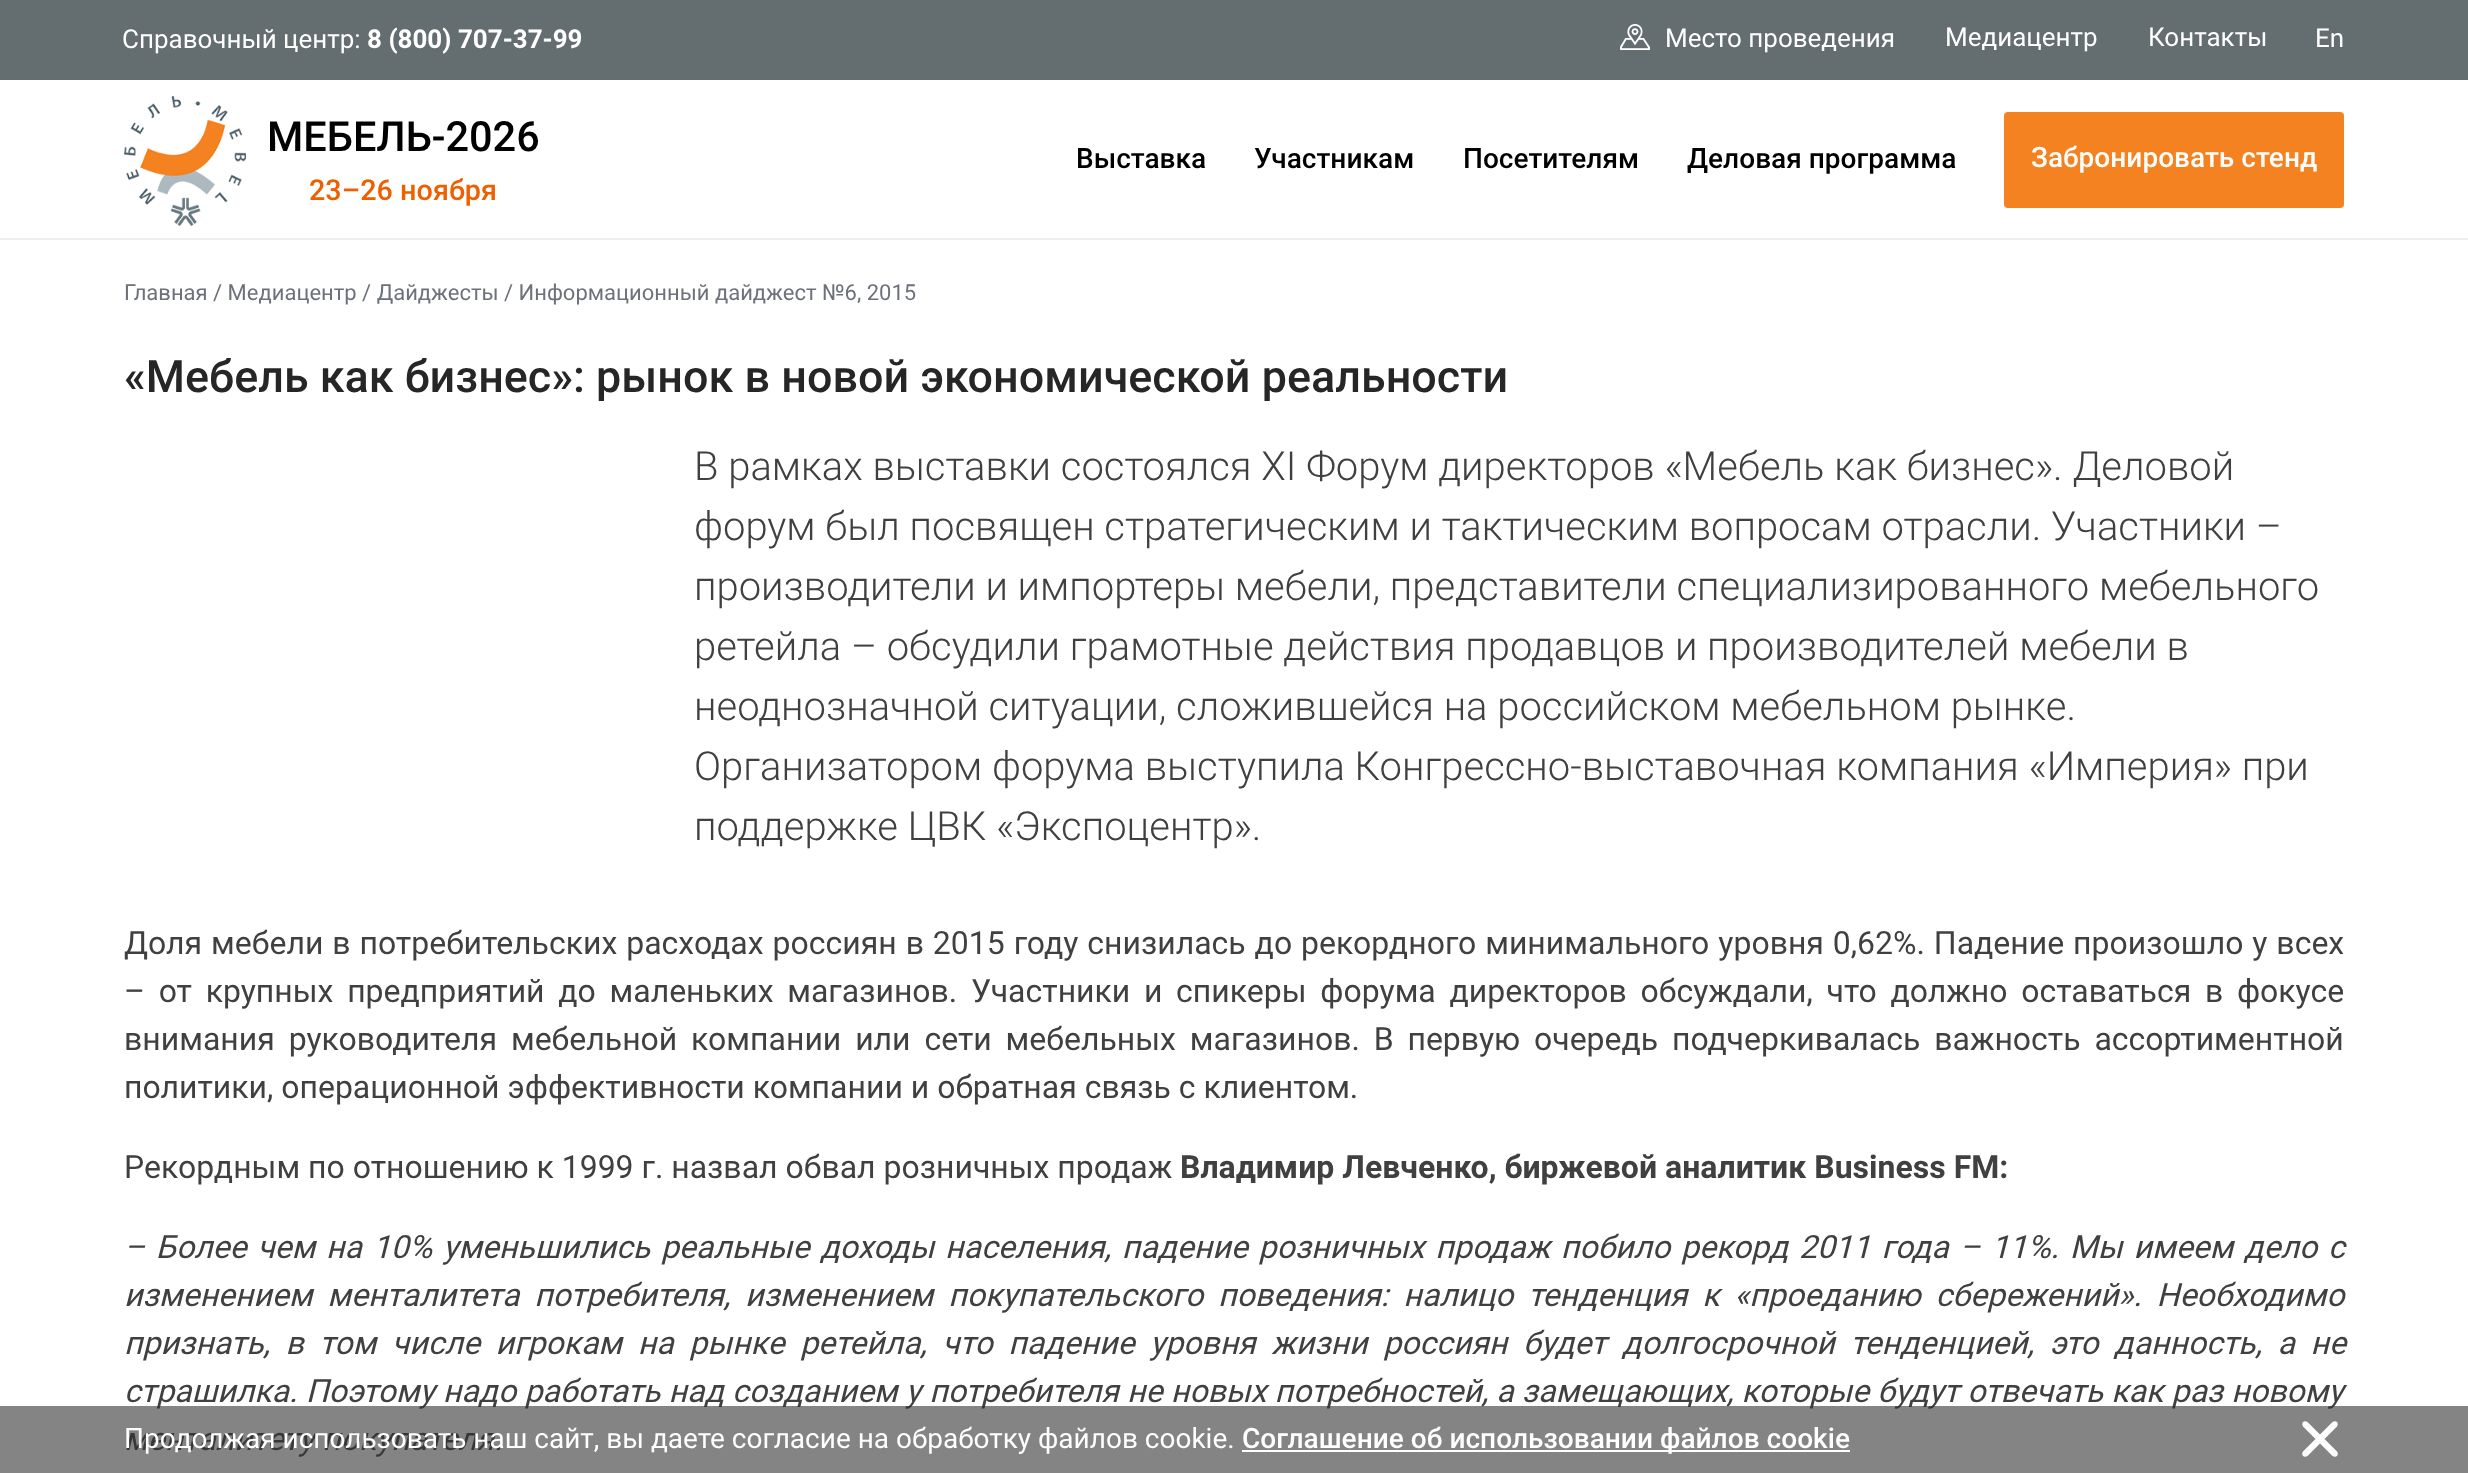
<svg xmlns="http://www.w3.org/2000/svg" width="2468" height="1473">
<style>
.a{font:26px Roboto;fill:#fff}
.b{font:bold 26px Roboto;fill:#fff}
.c{font:500 41.5px Roboto;fill:#000}
.d{font:500 28.75px Roboto;fill:#ee5f00}
.e{font:500 28px Roboto;fill:#000}
.f{font:500 28px Roboto;fill:#fff}
.g{font:22px Roboto;fill:#6d7179}
.h{font:500 44.8px Roboto;fill:#262626}
.i{font:300 40px Roboto;fill:#404040}
.j{font:32px Roboto;fill:#404040}
.k{font:bold 32px Roboto;fill:#404040}
.l{font:italic 32px Roboto;fill:#404040}
.m{font:28px Roboto;fill:#fff}
</style>
<rect width="100%" height="100%" fill="#fff"/>
<path fill="#646d70" d="M0 0h2468v80H0z"/>
<image href="1.png" x="1620" y="24" width="30" height="26"/>
<path fill="#edeeef" d="M0 238h2468v2H0z"/>
<image href="2.png" x="124" y="96" width="122" height="130"/>
<rect fill="#f58220" x="2004" y="112" width="340" height="96" rx="4"/>
<text class="a" x="122" y="48">Справочный центр:</text>
<text class="b" x="367" y="48">8 (800) 707-37-99</text>
<text class="a" x="1665" y="47">Место проведения</text>
<text class="a" x="1945" y="46">Медиацентр</text>
<text class="a" x="2148" y="46">Контакты</text>
<text class="a" x="2315" y="47">En</text>
<text class="c" x="267" y="151">МЕБЕЛЬ-2026</text>
<text class="d" x="309" y="200">23–26 ноября</text>
<text class="e" x="1076" y="168">Выставка</text>
<text class="e" x="1254" y="168">Участникам</text>
<text class="e" x="1463" y="168">Посетителям</text>
<text class="e" x="1687" y="168">Деловая программа</text>
<text class="f" x="2031" y="167">Забронировать стенд</text>
<text class="g" x="124" y="300">Главная / Медиацентр / Дайджесты / Информационный дайджест №6, 2015</text>
<text class="h" x="124" y="392">«Мебель как бизнес»: рынок в новой экономической реальности</text>
<text class="i" x="694" y="480">В рамках выставки состоялся XI Форум директоров «Мебель как бизнес». Деловой</text>
<text class="i" x="694" y="540">форум был посвящен стратегическим и тактическим вопросам отрасли. Участники –</text>
<text class="i" x="694" y="600">производители и импортеры мебели, представители специализированного мебельного</text>
<text class="i" x="694" y="660">ретейла – обсудили грамотные действия продавцов и производителей мебели в</text>
<text class="i" x="694" y="720">неоднозначной ситуации, сложившейся на российском мебельном рынке.</text>
<text class="i" x="694" y="780">Организатором форума выступила Конгрессно-выставочная компания «Империя» при</text>
<text class="i" x="694" y="840">поддержке ЦВК «Экспоцентр».</text>
<text class="j" x="124" y="954" word-spacing="1">Доля мебели в потребительских расходах россиян в 2015 году снизилась до рекордного минимального уровня 0,62%. Падение произошло у всех</text>
<text class="j" x="124" y="1002" word-spacing="5.75">– от крупных предприятий до маленьких магазинов. Участники и спикеры форума директоров обсуждали, что должно оставаться в фокусе</text>
<text class="j" x="124" y="1050" word-spacing="5.9">внимания руководителя мебельной компании или сети мебельных магазинов. В первую очередь подчеркивалась важность ассортиментной</text>
<text class="j" x="124" y="1098">политики, операционной эффективности компании и обратная связь с клиентом.</text>
<text class="j" x="124" y="1178">Рекордным по отношению к 1999 г. назвал обвал розничных продаж</text>
<text class="k" x="1180" y="1178">Владимир Левченко, биржевой аналитик Business FM:</text>
<text class="l" x="124" y="1258" word-spacing="2.9">– Более чем на 10% уменьшились реальные доходы населения, падение розничных продаж побило рекорд 2011 года – 11%. Мы имеем дело с</text>
<text class="l" x="124" y="1306" word-spacing="6.9">изменением менталитета потребителя, изменением покупательского поведения: налицо тенденция к «проеданию сбережений». Необходимо</text>
<text class="l" x="124" y="1354" word-spacing="7.75">признать, в том числе игрокам на рынке ретейла, что падение уровня жизни россиян будет долгосрочной тенденцией, это данность, а не</text>
<text class="l" x="124" y="1402" word-spacing="0.3">страшилка. Поэтому надо работать над созданием у потребителя не новых потребностей, а замещающих, которые будут отвечать как раз новому</text>
<text class="l" x="124" y="1450">менталитету покупателя.</text>
<path fill="#32323299" d="M0 1406h2468v67H0z"/>
<text class="m" x="124" y="1448">Продолжая использовать наш сайт, вы даете согласие на обработку файлов cookie.</text>
<path fill="#fff" d="M1242 1450h608v2H1242z"/>
<text class="f" x="1242" y="1448">Cоглашение об использовании файлов cookie</text>
<path fill="#fff" d="M2307.5 1422l29.5 29.5c1 1.5 1 3.5 0 4.5c-1 1-3 1-4.5 0l-29.5-29.5c-1-1.5-1-3.5 0-4.5c1-1 3-1 4.5 0z"/>
<path fill="#fff" d="M2303 1451.5l29.5-29.5c1.5-1 3.5-1 4.5 0c1 1 1 3 0 4.5l-29.5 29.5c-1.5 1-3.5 1-4.5 0c-1-1-1-3 0-4.5z"/>
</svg>
